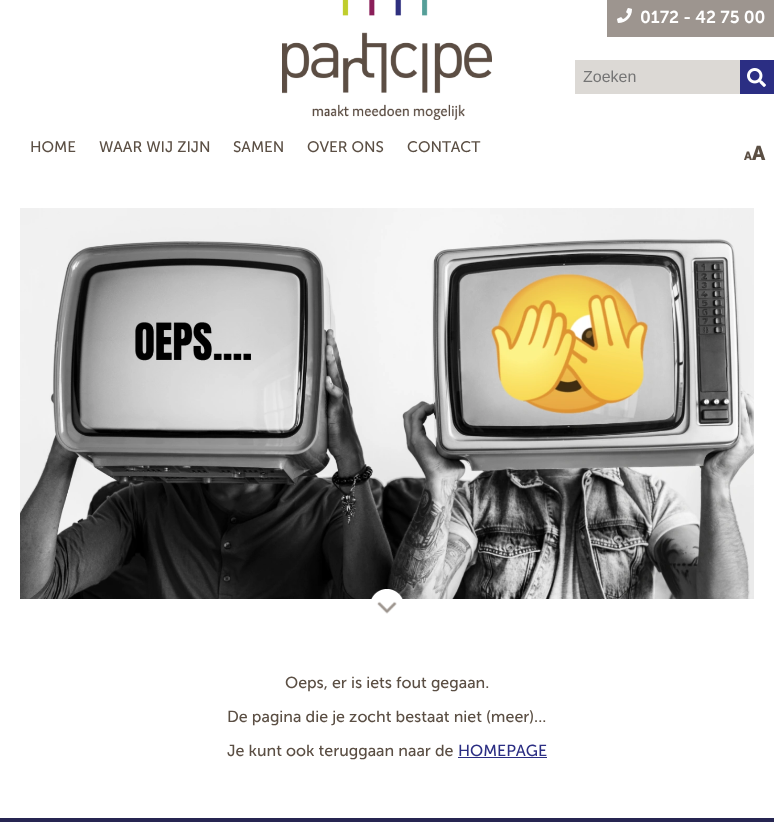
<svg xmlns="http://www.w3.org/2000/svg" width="774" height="822">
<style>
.a{font:600 17.25px 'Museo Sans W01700';fill:#fff}
.b{font:16px Liberation Sans;fill:#757575}
.c{font:15.25px 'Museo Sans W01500';fill:#5b4f44}
.d{font:800 12px 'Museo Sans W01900';fill:#5b4f44}
.e{font:800 20px 'Museo Sans W01900';fill:#5b4f44}
.f{font:16px 'Museo Sans W01500';fill:#5b4f44}
.g{font:16px 'Museo Sans W01500';fill:#2b2e83}
</style>
<rect width="100%" height="100%" fill="#fff"/>
<image href="1.png" x="282" y="0" width="210" height="120"/>
<path fill="#9d958f" d="M607 0h167v37H607z"/>
<image href="2.png" x="617" y="8" width="15" height="15"/>
<path fill="#dcd9d5" d="M575 60h165v34H575z"/>
<path fill="#2b2e83" d="M740 60h34v34H740z"/>
<image href="3.png" x="747" y="68" width="19" height="19"/>
<image href="4.png" x="20" y="208" width="734" height="391"/>
<image href="5.png" x="371" y="589" width="32" height="25"/>
<path fill="#2b2e83" d="M458 757h89v1H458z"/>
<path fill="#262551" d="M0 818h774v4H0z"/>
<text class="a" x="640" y="23">0172 - 42 75 00</text>
<text class="b" x="583" y="82">Zoeken</text>
<text class="c" x="30" y="152">HOME</text>
<text class="c" x="99" y="152">WAAR WIJ ZIJN</text>
<text class="c" x="233" y="152">SAMEN</text>
<text class="c" x="307" y="152">OVER ONS</text>
<text class="c" x="407" y="152">CONTACT</text>
<text class="d" x="744" y="160">A</text>
<text class="e" x="752" y="160">A</text>
<text class="f" x="285" y="688">Oeps, er is iets fout gegaan.</text>
<text class="f" x="227" y="722">De pagina die je zocht bestaat niet (meer)...</text>
<text class="f" x="227" y="756">Je kunt ook teruggaan naar de</text>
<text class="g" x="458" y="756">HOMEPAGE</text>
</svg>
